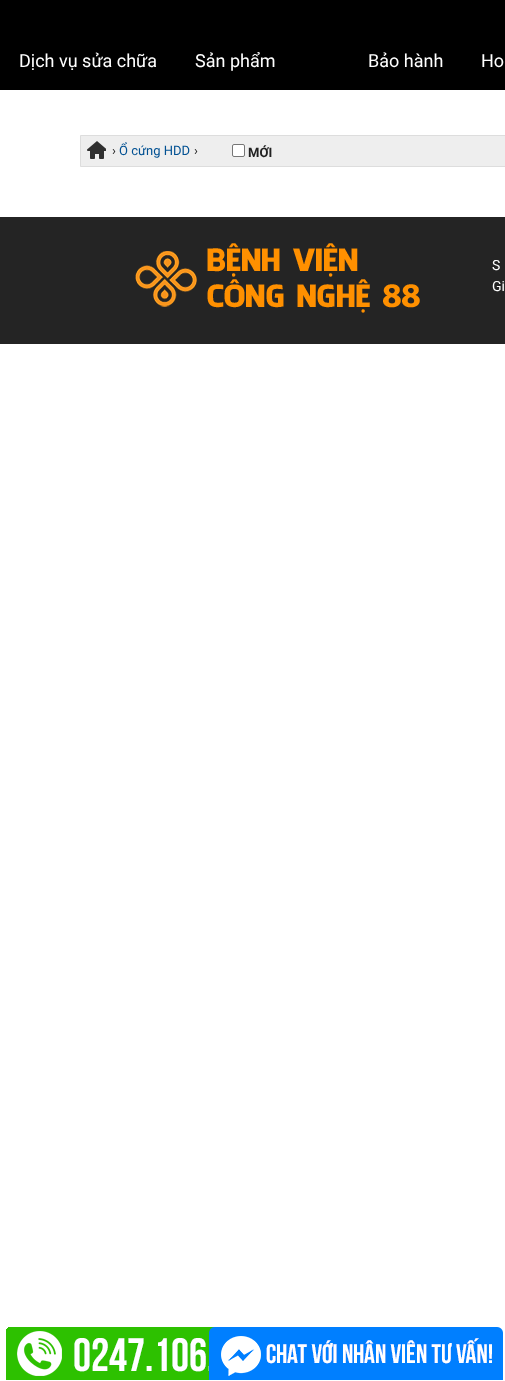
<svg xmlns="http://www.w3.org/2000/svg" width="505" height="1381">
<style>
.a{font:18px Roboto;fill:#fff}
.b{font:13px Roboto;fill:#222}
.c{font:13px Roboto;fill:#015092}
.d{font:bold 13px Roboto;fill:#222}
.e{font:14px Roboto;fill:#fff}
</style>
<rect width="100%" height="100%" fill="#fff"/>
<path fill="#000" d="M0 0h505v90H0z"/>
<path fill="#eee" stroke="#ddd" d="M80.5 135.5h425v31H80.5z"/>
<image href="1.png" x="87" y="141" width="19" height="18"/>
<rect fill="#fff" stroke="#767676" x="232.5" y="144.5" width="12" height="12" rx="1.5"/>
<path fill="#242424" d="M0 217h505v127H0z"/>
<image href="2.png" x="135" y="243" width="285" height="70"/>
<image href="3.png" x="6" y="1327" width="209" height="53"/>
<image href="4.png" x="209" y="1327" width="294" height="53"/>
<text class="a" x="19" y="67">Dịch vụ sửa chữa</text>
<text class="a" x="195" y="67">Sản phẩm</text>
<text class="a" x="368" y="67">Bảo hành</text>
<text class="a" x="481" y="67">Ho</text>
<text class="b" x="112" y="155">›</text>
<text class="c" x="119" y="155">Ổ cứng HDD</text>
<text class="b" x="194" y="155">›</text>
<text class="d" x="248" y="157">MỚI</text>
<text class="e" x="492" y="270">S</text>
<text class="e" x="492" y="291">Gi</text>
</svg>
